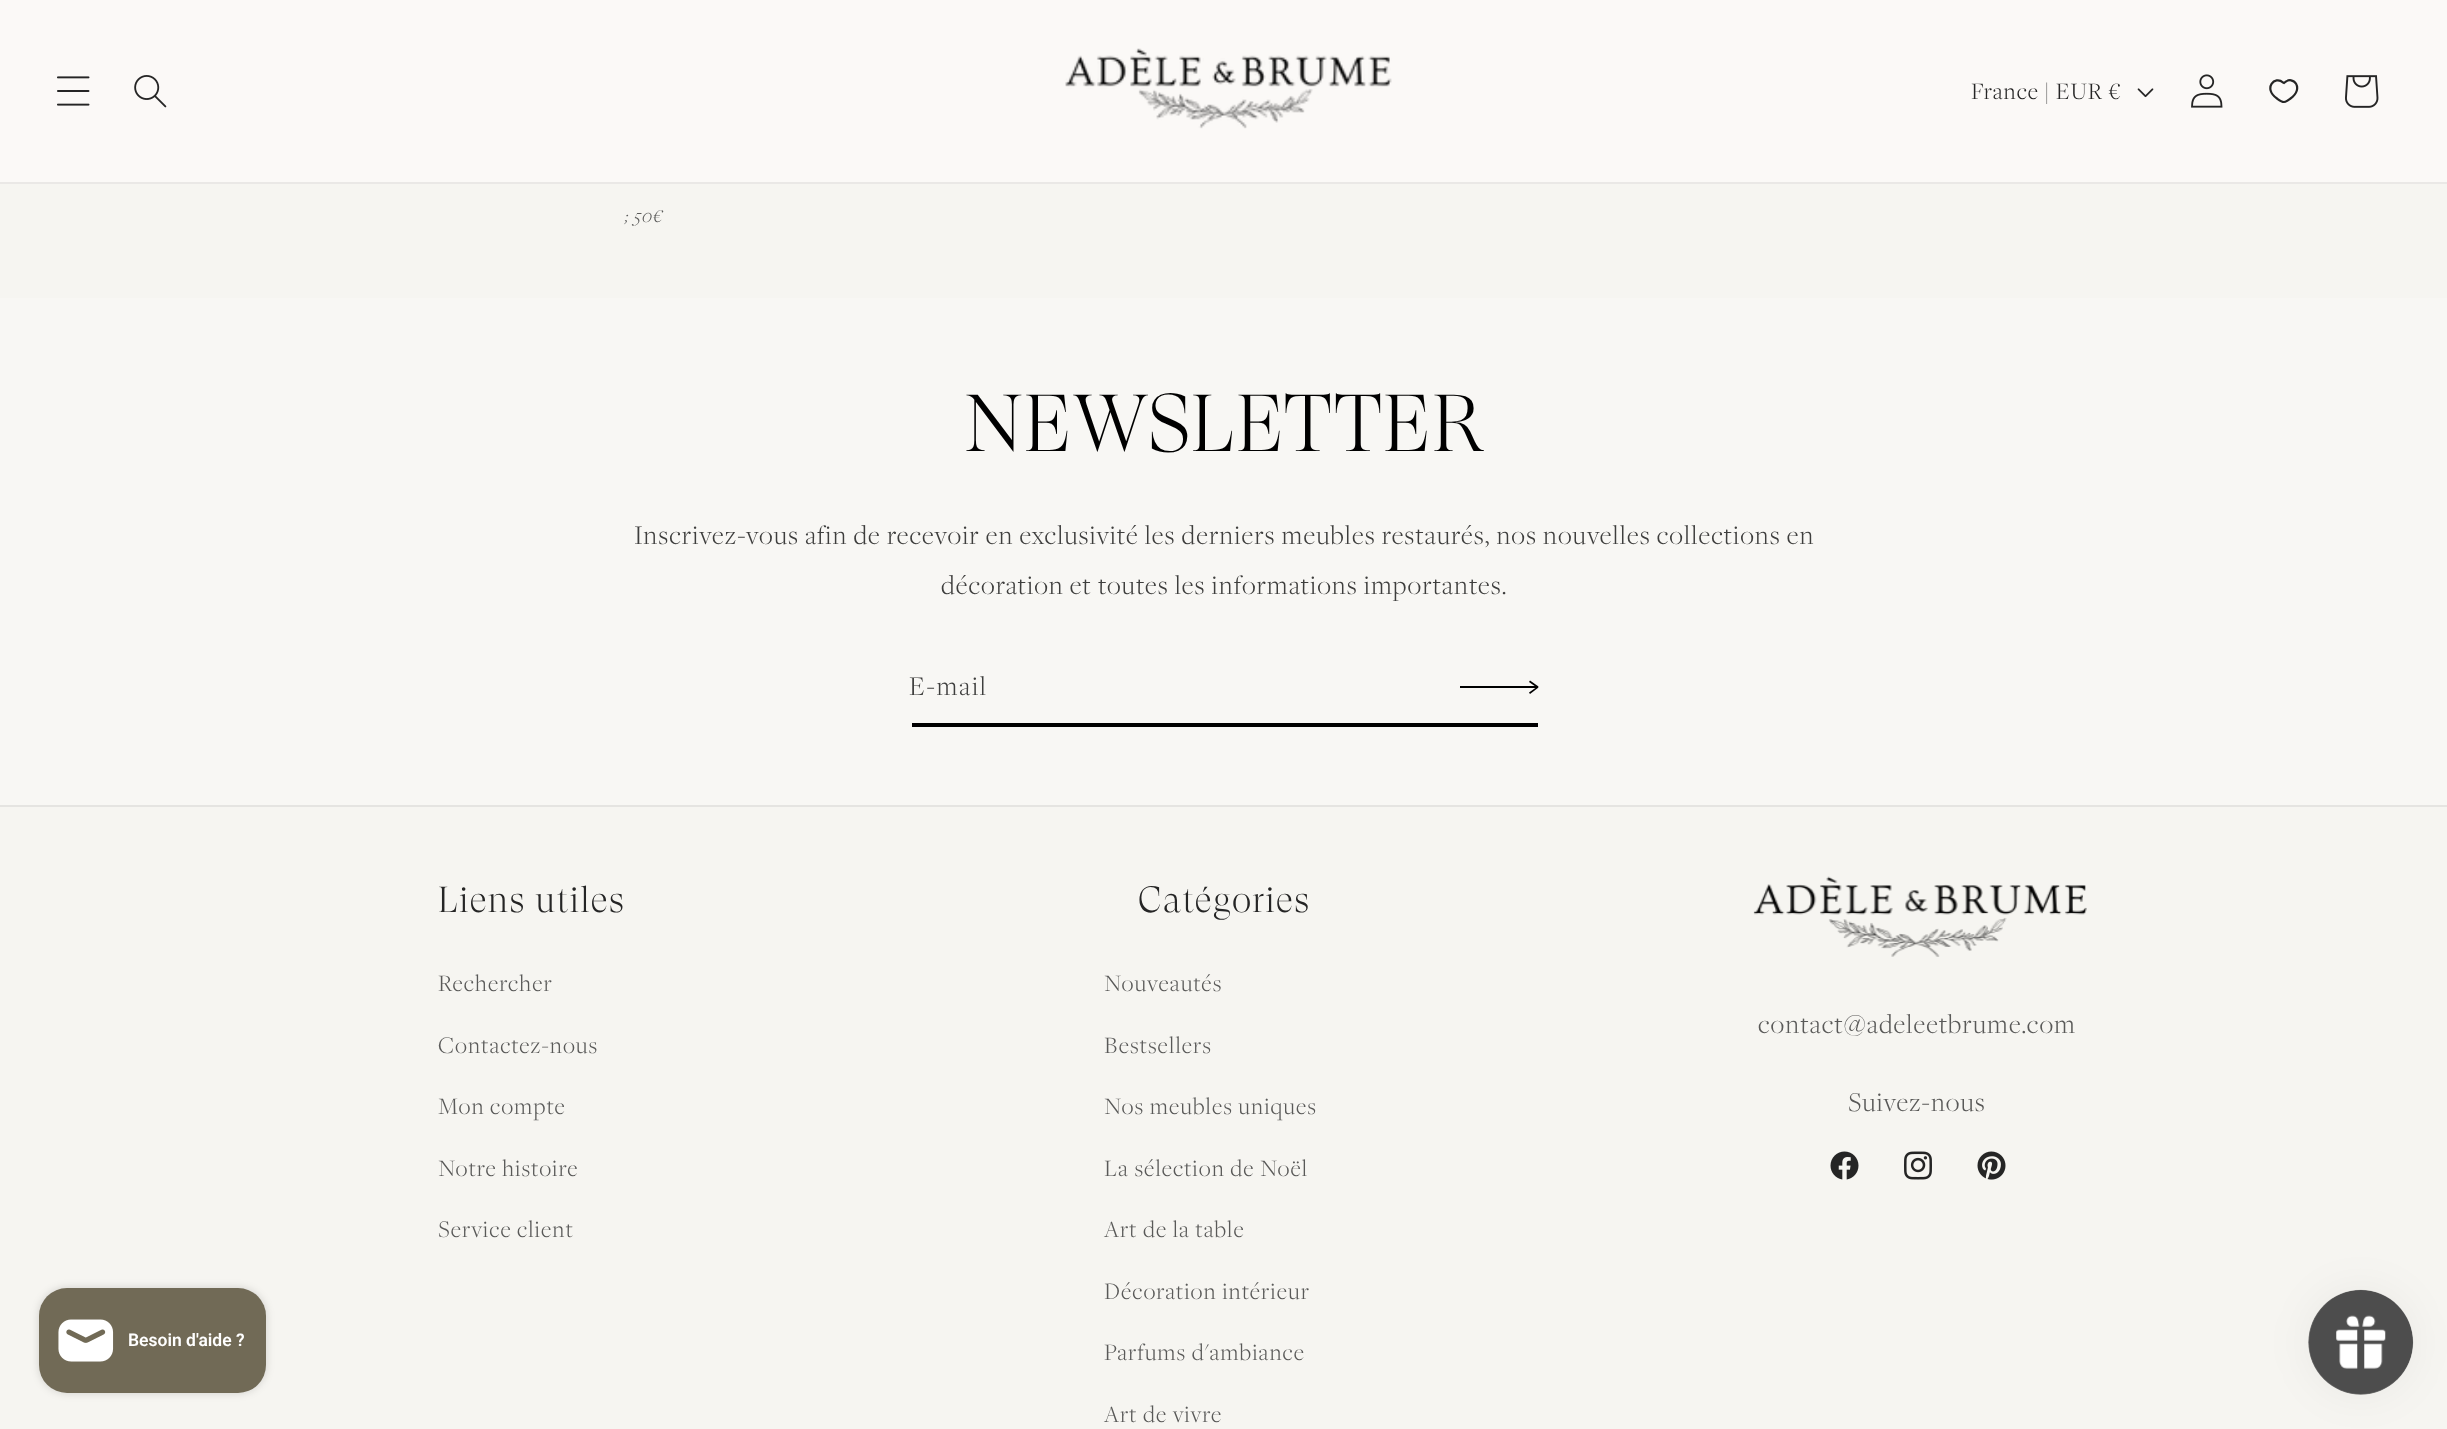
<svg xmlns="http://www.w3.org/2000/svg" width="2447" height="1429">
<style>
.a{font:300 24.5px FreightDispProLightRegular;letter-spacing:1.05px;fill:#252525}
.b{font:italic 300 19px FreightDispProLightRegular;letter-spacing:1.05px;fill:#595958}
.c{font:300 80.5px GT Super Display;letter-spacing:1.25px;fill:#000}
.d{font:300 28px FreightDispProLightRegular;letter-spacing:1.05px;fill:#3e3e3d}
.e{font:300 28px FreightDispProLightRegular;letter-spacing:1.75px;fill:#3e3e3d}
.f{font:600 17.5px Roboto;fill:#fff}
.g{font:300 36.25px GT Super Display;letter-spacing:1.25px;fill:#252525}
.h{font:300 24.5px FreightDispProLightRegular;letter-spacing:1.05px;fill:#595958}
.i{font:300 28px FreightDispProLightRegular;letter-spacing:1.05px;fill:#595958}
</style>
<rect width="100%" height="100%" fill="#f6f5f1"/>
<path fill="#fbf9f7" d="M0 0h2447v182H0z"/>
<path fill="#eae8e6" d="M0 182h2447v2H0z"/>
<image href="1.png" x="57" y="76" width="33" height="30"/>
<image href="2.png" x="134" y="75" width="33" height="33"/>
<image href="3.png" x="1065" y="48" width="327" height="81"/>
<image href="4.png" x="2137" y="88" width="17" height="10"/>
<image href="5.png" x="2191" y="74" width="32" height="34"/>
<path fill="none" stroke="#252525" stroke-width="2.2" d="M2283 82.5l1 .5c9.5-9 20.5 6 6.5 15.5c-2 1.5-4.5 3.5-6.5 3.5c-2.5 0-5-2-7-3.5c-14.5-10-2-23.5 6-16z"/>
<image href="6.png" x="2345" y="75" width="34" height="33"/>
<path fill="#f8f7f4" d="M0 298h2447v507H0z"/>
<path fill="#000" d="M1460 686h78v2H1460z"/>
<path fill="#000" d="M1530 680.5l8.5 6l-1 1.5l-8.5-6z"/>
<path fill="#000" d="M1529 692.5l8.5-6l1 1l-8.5 6.5z"/>
<path fill="#000" d="M912 723h626v4H912z"/>
<rect fill="#00000026" filter="blur(4.5px)" x="39" y="1288" width="227" height="105" rx="28"/>
<rect fill="#716a56" x="39" y="1288" width="227" height="105" rx="28"/>
<image href="7.png" x="58" y="1319" width="56" height="43"/>
<path fill="#e5e4e1" d="M0 805h2447v2H0z"/>
<image href="8.png" x="1753" y="876" width="334" height="81"/>
<image href="9.png" x="1830" y="1151" width="29" height="29"/>
<image href="10.png" x="1904" y="1151" width="28" height="29"/>
<image href="11.png" x="1977" y="1151" width="29" height="29"/>
<rect fill="#0000000d" filter="blur(22px)" x="2308" y="1290" width="105" height="105" rx="52.5"/>
<image href="12.png" x="2308" y="1289" width="106" height="106"/>
<text class="a" x="1971" y="99">France | EUR €</text>
<text class="b" x="624" y="222">; 50€</text>
<text class="c" x="964" y="451">NEWSLETTER</text>
<text class="d" x="634" y="544">Inscrivez-vous afin de recevoir en exclusivité les derniers meubles restaurés, nos nouvelles collections en</text>
<text class="d" x="941" y="594">décoration et toutes les informations importantes.</text>
<text class="e" x="909" y="695">E-mail</text>
<text class="f" x="128" y="1346">Besoin d'aide ?</text>
<text class="g" x="438" y="912">Liens utiles</text>
<text class="h" x="438" y="991">Rechercher</text>
<text class="h" x="438" y="1053">Contactez-nous</text>
<text class="h" x="438" y="1114">Mon compte</text>
<text class="h" x="438" y="1176">Notre histoire</text>
<text class="h" x="438" y="1237">Service client</text>
<text class="g" x="1138" y="912">Catégories</text>
<text class="h" x="1104" y="991">Nouveautés</text>
<text class="h" x="1104" y="1053">Bestsellers</text>
<text class="h" x="1104" y="1114">Nos meubles uniques</text>
<text class="h" x="1104" y="1176">La sélection de Noël</text>
<text class="h" x="1104" y="1237">Art de la table</text>
<text class="h" x="1104" y="1299">Décoration intérieur</text>
<text class="h" x="1104" y="1360">Parfums d'ambiance</text>
<text class="h" x="1104" y="1422">Art de vivre</text>
<text class="i" x="1758" y="1033">contact@adeleetbrume.com</text>
<text class="i" x="1848" y="1111">Suivez-nous</text>
</svg>
